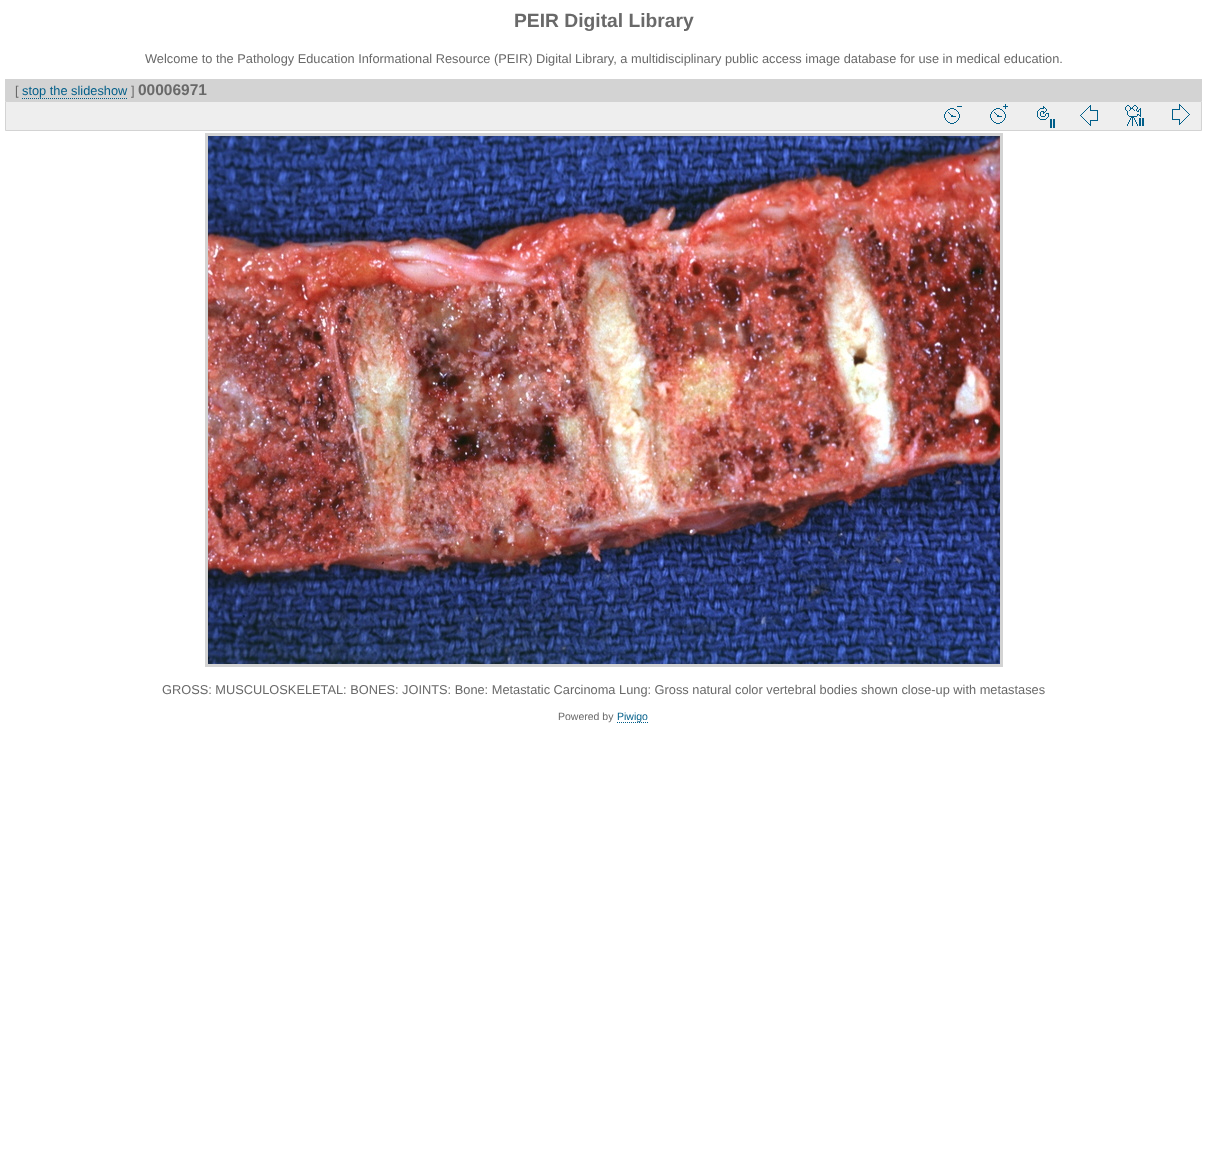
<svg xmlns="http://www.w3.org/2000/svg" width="1207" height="1163">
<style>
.a{font:bold 19.25px Liberation Sans;fill:#696969}
.b{font:12.8px Liberation Sans;fill:#696969}
.c{font:12.8px Liberation Sans;fill:#005e89}
.d{font:bold 15.5px Liberation Sans;fill:#696969}
.e{font:10.5px Liberation Sans;fill:#696969}
.f{font:10.5px Liberation Sans;fill:#005e89}
</style>
<rect width="100%" height="100%" fill="#fff"/>
<path fill="#d3d3d3" d="M5 79h1197v22H5z"/>
<path fill="none" stroke="#005e89" stroke-dasharray="1 1" d="M22 98.5h105"/>
<path fill="#eee" stroke="#d3d3d3" d="M5.5 101.5h1196v29H5.5z"/>
<image href="1.png" x="944" y="106" width="18" height="18"/>
<image href="2.png" x="990" y="104" width="18" height="20"/>
<image href="3.png" x="1037" y="106" width="18" height="22"/>
<image href="4.png" x="1080" y="105" width="18" height="21"/>
<image href="5.png" x="1125" y="105" width="19" height="21"/>
<image href="6.png" x="1172" y="104" width="18" height="21"/>
<path fill="none" stroke="#d3d3d3" stroke-width="3" d="M206.5 134.5h795v531H206.5z"/>
<image href="7.png" x="208" y="136" width="792" height="528"/>
<path fill="none" stroke="#005e89" stroke-dasharray="1 1" d="M617 722.5h32"/>
<text class="a" x="514" y="27">PEIR Digital Library</text>
<text class="b" x="145" y="63">Welcome to the Pathology Education Informational Resource (PEIR) Digital Library, a multidisciplinary public access image database for use in medical education.</text>
<text class="b" x="15" y="95">[</text>
<text class="c" x="22" y="95">stop the slideshow</text>
<text class="b" x="131" y="95">]</text>
<text class="d" x="138" y="95">00006971</text>
<text class="b" x="162" y="694">GROSS: MUSCULOSKELETAL: BONES: JOINTS: Bone: Metastatic Carcinoma Lung: Gross natural color vertebral bodies shown close-up with metastases</text>
<text class="e" x="558" y="720">Powered by</text>
<text class="f" x="617" y="720">Piwigo</text>
</svg>
